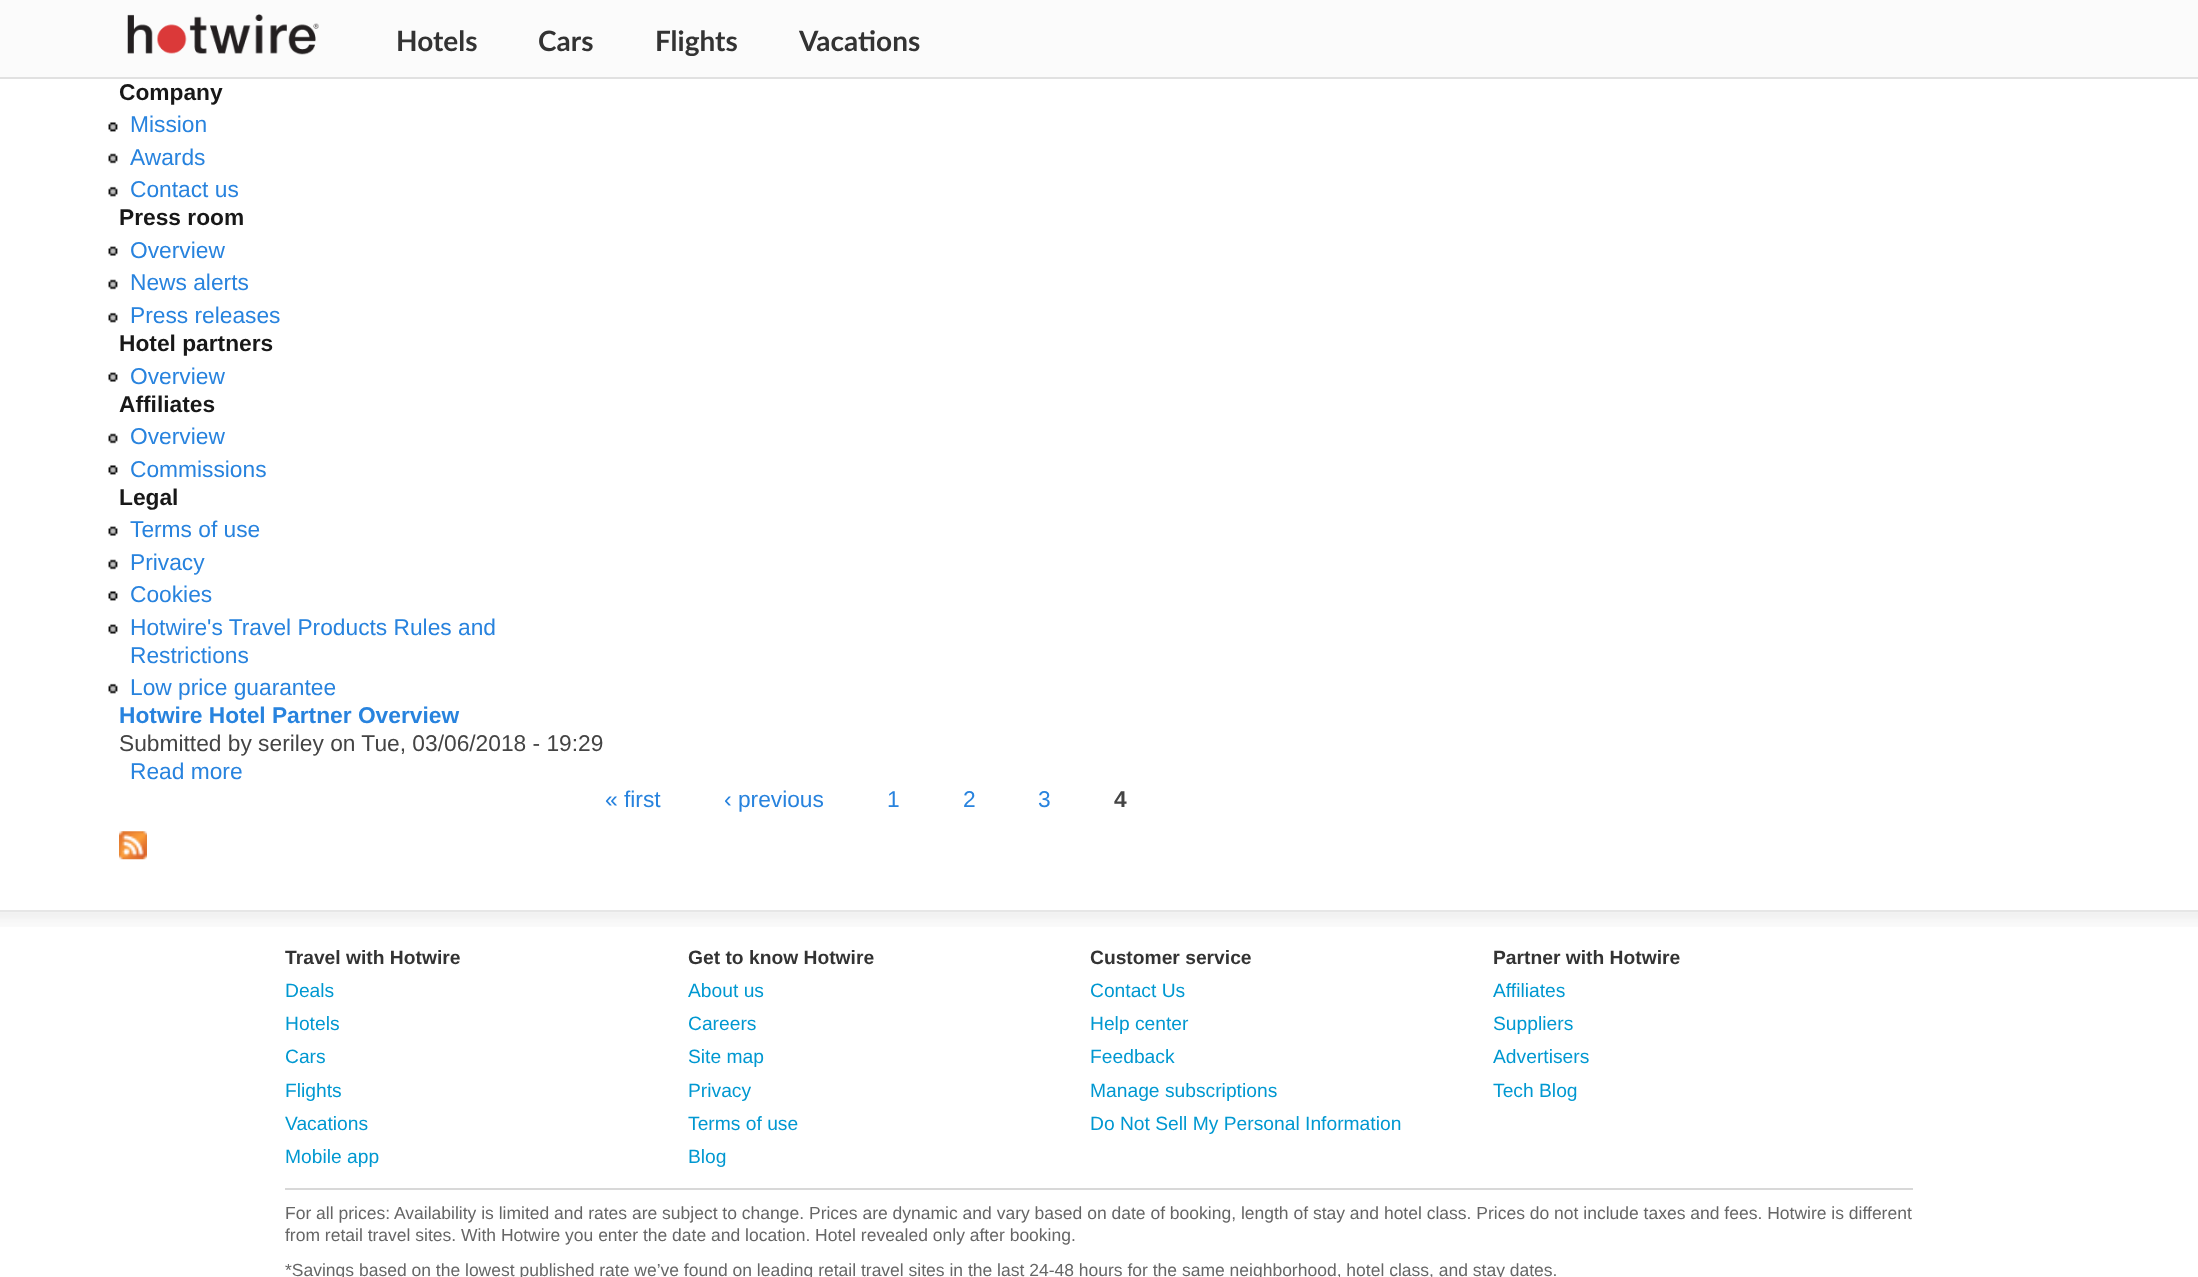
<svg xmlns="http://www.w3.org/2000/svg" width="2198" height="1277">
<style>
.a{font:bold 28px Lato;fill:#333}
.b{font:bold 22.75px Liberation Sans;fill:#181818}
.c{font:22.75px Liberation Sans;fill:#2883de}
.d{font:bold 22.75px Liberation Sans;fill:#2883de}
.e{font:22.75px Liberation Sans;fill:#444}
.f{font:bold 22.75px Liberation Sans;fill:#444}
.g{font:bold 19.25px Liberation Sans;fill:#333}
.h{font:19.25px Liberation Sans;fill:#0098d1}
.i{font:17.5px Liberation Sans;fill:#666}
</style>
<rect width="100%" height="100%" fill="#fff"/>
<path fill="#fbfbfb" d="M0 0h2198v77H0z"/>
<path fill="#e1e1e1" d="M0 77h2198v2H0z"/>
<image href="1.png" x="127" y="14" width="192" height="41"/>
<image href="2.png" x="108" y="122" width="10" height="10"/>
<image href="3.png" x="108" y="153" width="10" height="11"/>
<image href="4.png" x="108" y="186" width="10" height="11"/>
<image href="5.png" x="108" y="246" width="10" height="10"/>
<image href="3.png" x="108" y="279" width="10" height="11"/>
<image href="4.png" x="108" y="312" width="10" height="11"/>
<image href="5.png" x="108" y="372" width="10" height="10"/>
<image href="3.png" x="108" y="433" width="10" height="11"/>
<image href="2.png" x="108" y="465" width="10" height="10"/>
<image href="5.png" x="108" y="526" width="10" height="10"/>
<image href="3.png" x="108" y="559" width="10" height="11"/>
<image href="2.png" x="108" y="591" width="10" height="10"/>
<image href="5.png" x="108" y="624" width="10" height="10"/>
<image href="4.png" x="108" y="683" width="10" height="11"/>
<image href="6.png" x="119" y="831" width="28" height="29"/>
<image href="7.png" x="0" y="912" width="2198" height="15"/>
<path fill="#e6e6e6" d="M0 910h2198v2H0z"/>
<path fill="#d8d8d8" d="M285 1188h1628v2H285z"/>
<text class="a" x="396" y="51">Hotels</text>
<text class="a" x="538" y="51">Cars</text>
<text class="a" x="655" y="51">Flights</text>
<text class="a" x="799" y="51">Vacations</text>
<text class="b" x="119" y="100">Company</text>
<text class="c" x="130" y="132">Mission</text>
<text class="c" x="130" y="165">Awards</text>
<text class="c" x="130" y="197">Contact us</text>
<text class="b" x="119" y="225">Press room</text>
<text class="c" x="130" y="258">Overview</text>
<text class="c" x="130" y="290">News alerts</text>
<text class="c" x="130" y="323">Press releases</text>
<text class="b" x="119" y="351">Hotel partners</text>
<text class="c" x="130" y="384">Overview</text>
<text class="b" x="119" y="412">Affiliates</text>
<text class="c" x="130" y="444">Overview</text>
<text class="c" x="130" y="477">Commissions</text>
<text class="b" x="119" y="505">Legal</text>
<text class="c" x="130" y="537">Terms of use</text>
<text class="c" x="130" y="570">Privacy</text>
<text class="c" x="130" y="602">Cookies</text>
<text class="c" x="130" y="635">Hotwire's Travel Products Rules and</text>
<text class="c" x="130" y="663">Restrictions</text>
<text class="c" x="130" y="695">Low price guarantee</text>
<text class="d" x="119" y="723">Hotwire Hotel Partner Overview</text>
<text class="e" x="119" y="751">Submitted by seriley on Tue, 03/06/2018 - 19:29</text>
<text class="c" x="130" y="779">Read more</text>
<text class="c" x="605" y="807">« first</text>
<text class="c" x="724" y="807">‹ previous</text>
<text class="c" x="887" y="807">1</text>
<text class="c" x="963" y="807">2</text>
<text class="c" x="1038" y="807">3</text>
<text class="f" x="1114" y="807">4</text>
<text class="g" x="285" y="964">Travel with Hotwire</text>
<text class="h" x="285" y="997">Deals</text>
<text class="h" x="285" y="1030">Hotels</text>
<text class="h" x="285" y="1063">Cars</text>
<text class="h" x="285" y="1097">Flights</text>
<text class="h" x="285" y="1130">Vacations</text>
<text class="h" x="285" y="1163">Mobile app</text>
<text class="g" x="688" y="964">Get to know Hotwire</text>
<text class="h" x="688" y="997">About us</text>
<text class="h" x="688" y="1030">Careers</text>
<text class="h" x="688" y="1063">Site map</text>
<text class="h" x="688" y="1097">Privacy</text>
<text class="h" x="688" y="1130">Terms of use</text>
<text class="h" x="688" y="1163">Blog</text>
<text class="g" x="1090" y="964">Customer service</text>
<text class="h" x="1090" y="997">Contact Us</text>
<text class="h" x="1090" y="1030">Help center</text>
<text class="h" x="1090" y="1063">Feedback</text>
<text class="h" x="1090" y="1097">Manage subscriptions</text>
<text class="h" x="1090" y="1130">Do Not Sell My Personal Information</text>
<text class="g" x="1493" y="964">Partner with Hotwire</text>
<text class="h" x="1493" y="997">Affiliates</text>
<text class="h" x="1493" y="1030">Suppliers</text>
<text class="h" x="1493" y="1063">Advertisers</text>
<text class="h" x="1493" y="1097">Tech Blog</text>
<text class="i" x="285" y="1219">For all prices: Availability is limited and rates are subject to change. Prices are dynamic and vary based on date of booking, length of stay and hotel class. Prices do not include taxes and fees. Hotwire is different</text>
<text class="i" x="285" y="1241">from retail travel sites. With Hotwire you enter the date and location. Hotel revealed only after booking.</text>
<text class="i" x="285" y="1276">*Savings based on the lowest published rate we’ve found on leading retail travel sites in the last 24-48 hours for the same neighborhood, hotel class, and stay dates.</text>
</svg>
